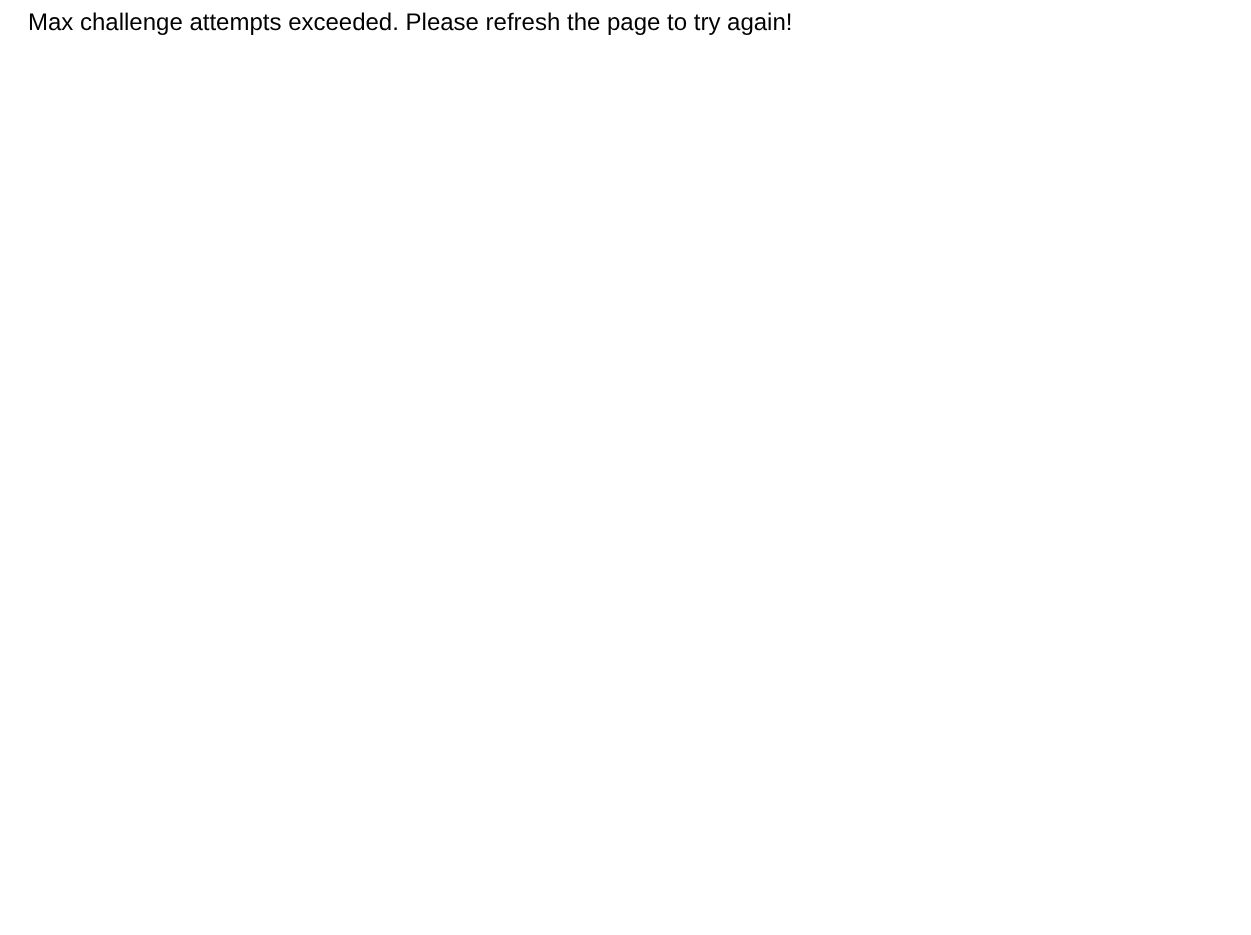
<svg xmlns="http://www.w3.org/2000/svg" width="1251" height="935">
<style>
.a{font:24px Liberation Sans;fill:#000}
</style>
<rect width="100%" height="100%" fill="#fff"/>
<text class="a" x="28" y="30">Max challenge attempts exceeded. Please refresh the page to try again!</text>
</svg>
